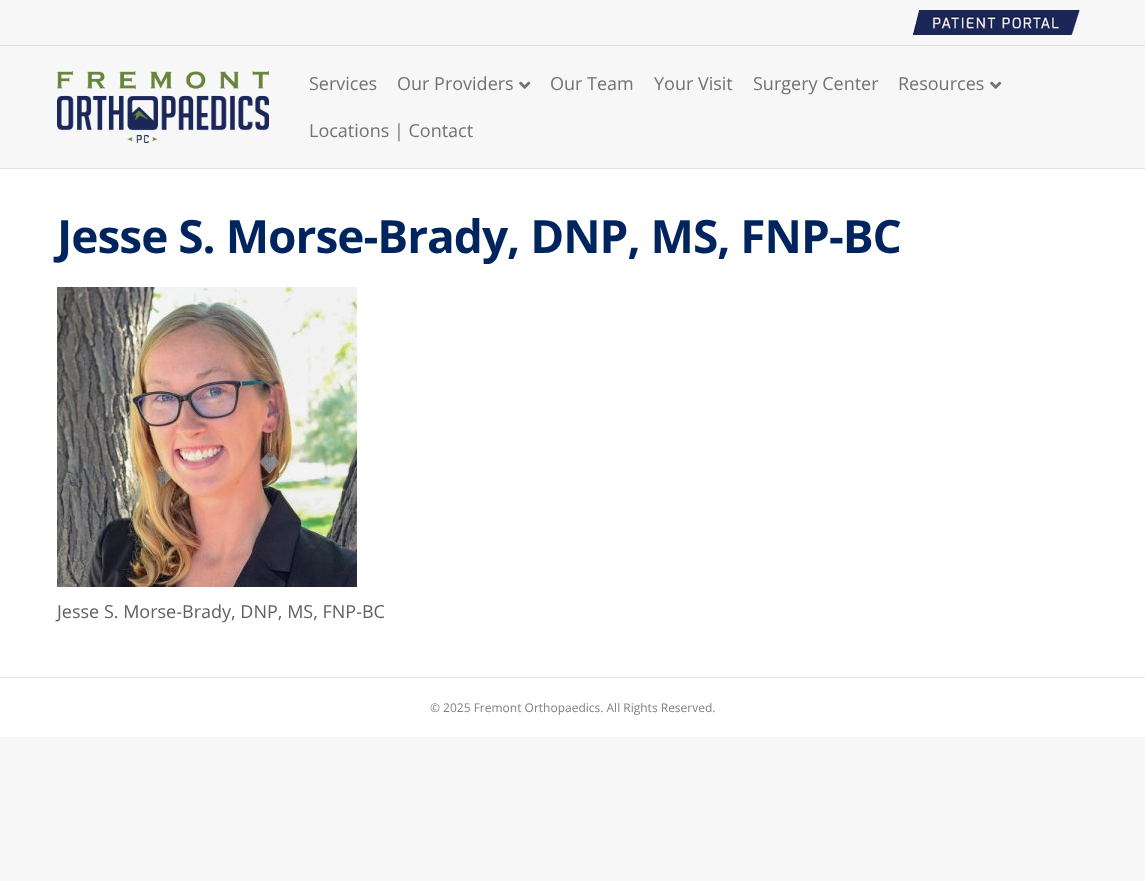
<svg xmlns="http://www.w3.org/2000/svg" width="1145" height="881">
<style>
.a{font:18px Open Sans;fill:#727272}
.b{font:bold 46px Open Sans;letter-spacing:-1px;fill:#00255e}
.c{font:18px Open Sans;fill:#606060}
.d{font:12px Open Sans;fill:#808080}
</style>
<rect width="100%" height="100%" fill="#f7f7f7"/>
<path fill="#dedede" d="M0 45h1145v1H0z"/>
<image href="1.png" x="912" y="10" width="168" height="25"/>
<path fill="#dee4d9" d="M0 168h1145v1H0z"/>
<image href="2.png" x="57" y="71" width="212" height="72"/>
<image href="3.png" x="519" y="81" width="12" height="8"/>
<image href="3.png" x="990" y="81" width="12" height="8"/>
<path fill="#fff" d="M0 169h1145v508H0z"/>
<image href="4.png" x="57" y="287" width="300" height="300"/>
<path fill="#fff" d="M0 678h1145v59H0z"/>
<path fill="#e6e6e6" d="M0 677h1145v1H0z"/>
<text class="a" x="309" y="90">Services</text>
<text class="a" x="397" y="90">Our Providers</text>
<text class="a" x="550" y="90">Our Team</text>
<text class="a" x="654" y="90">Your Visit</text>
<text class="a" x="753" y="90">Surgery Center</text>
<text class="a" x="898" y="90">Resources</text>
<text class="a" x="309" y="137">Locations | Contact</text>
<text class="b" x="57" y="253">Jesse S. Morse-Brady, DNP, MS, FNP-BC</text>
<text class="c" x="57" y="618">Jesse S. Morse-Brady, DNP, MS, FNP-BC</text>
<text class="d" x="430" y="712">© 2025 Fremont Orthopaedics. All Rights Reserved.</text>
</svg>
